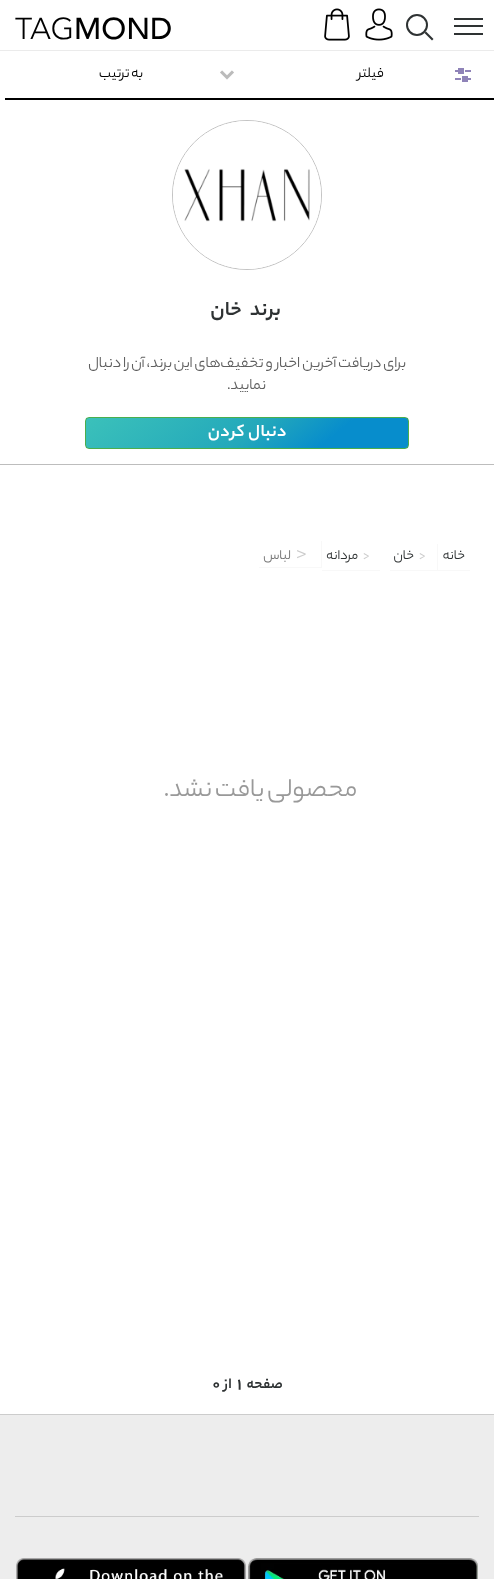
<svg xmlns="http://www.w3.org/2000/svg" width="494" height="1579">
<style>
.a{font:500 30px Avenir;fill:#000}
.b{font:300 30px Avenir;fill:#000}
.c{font:17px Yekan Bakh;direction:rtl;fill:#000}
.d{font:16px Yekan Bakh;direction:rtl;fill:#2e3233}
.e{font:16px Yekan Bakh;fill:#ccc}
.f{font:500 16px Avenir;fill:#ccc}
.g{font:16px Yekan Bakh;direction:rtl;fill:#777}
.h{font:30px Yekan Bakh;direction:rtl;fill:#999}
.i{font:bold 17px Yekan Bakh;direction:rtl;fill:#2e3233}
.j{font:bold 17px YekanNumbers;fill:#2e3233}
.k{font:bold 23.5px Yekan Bakh;letter-spacing:-0.5px;direction:rtl;fill:#2e3233}
.l{font:18px Yekan Bakh;direction:rtl;fill:#5f5f5f}
.m{font:bold 20px Yekan Bakh;direction:rtl;fill:#fff}
</style>
<defs>
<clipPath id="clip1"><path d="M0 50h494v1H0z"/></clipPath>
<clipPath id="clip2"><rect x="85" y="417" width="324" height="32" rx="4"/></clipPath>
<linearGradient id="g1" gradientUnits="userSpaceOnUse" x1="176" y1="345" x2="318" y2="521"><stop offset="0" stop-color="#3bc1ba"/><stop offset="0.51" stop-color="#23a8bb"/><stop offset="0.75" stop-color="#078dcc"/></linearGradient>
</defs>
<rect width="100%" height="100%" fill="#fff"/>
<g clip-path="url(#clip1)">
<path fill="#00000014" filter="blur(0.5px)" d="M0 1h494v50H0z"/>
</g>
<path fill="#2e3233" d="M454 25h29v2H454z"/>
<path fill="#2e3233" d="M454 18h29v2H454z"/>
<path fill="#2e3233" d="M454 33h29v2H454z"/>
<circle fill="none" stroke="#2e3233" stroke-width="2" cx="417" cy="25" r="10"/>
<path fill="#2e3233" d="M426 31.5l7.5 7.5l-1.5 1.5l-7.5-7.5z"/>
<image href="1.png" x="365" y="8" width="28" height="33"/>
<image href="2.png" x="324" y="8" width="26" height="33"/>
<image href="3.png" x="455" y="68" width="16" height="14"/>
<image href="4.png" x="220" y="70" width="14" height="10"/>
<path fill="#000" d="M5 98h489v2H5z"/>
<path fill="#f8f8f8" d="M438 570h32v1H438z"/>
<path fill="#f8f8f8" d="M437 544h1v27H437z"/>
<path fill="#f8f8f8" d="M390 570h48v1H390z"/>
<path fill="#f8f8f8" d="M322 570h58v1H322z"/>
<path fill="#f8f8f8" d="M321 541h1v27H321z"/>
<path fill="#f8f8f8" d="M259 567h63v1H259z"/>
<path fill="#bdbdbd" d="M0 464h494v1H0z"/>
<circle fill="none" stroke="#c3c3c3" cx="247" cy="195" r="74.5"/>
<image href="5.png" x="173" y="121" width="148" height="148"/>
<g clip-path="url(#clip2)">
<path fill="url(#g1)" d="M86 418h322v30H86z"/>
</g>
<rect fill="none" stroke="#4cae4c" x="85.5" y="417.5" width="323" height="31" rx="3.5"/>
<path fill="#ededed" d="M0 1415h494v164H0z"/>
<path fill="#ccc" d="M0 1414h494v1H0z"/>
<path fill="#ccc" d="M15 1516h464v1H15z"/>
<image href="6.png" x="248" y="1558" width="230" height="21"/>
<image href="7.png" x="16" y="1558" width="230" height="21"/>
<text class="a" x="74" y="39">MOND</text>
<text class="b" x="15" y="39">TAG</text>
<text class="c" x="384" y="77">فیلتر</text>
<text class="c" x="143" y="77">به ترتیب</text>
<text class="d" x="465" y="559">خانه</text>
<text class="e" x="419" y="559">&gt;</text>
<text class="d" x="414" y="559">خان</text>
<text class="e" x="363" y="559">&gt;</text>
<text class="d" x="358" y="559">مردانه</text>
<text class="f" x="296" y="559">&gt;</text>
<text class="g" x="291" y="559">لباس</text>
<text class="h" x="357" y="796">محصولی یافت نشد.</text>
<text class="i" x="283" y="1388">صفحه</text>
<text class="j" x="234" y="1388">1</text>
<text class="i" x="232" y="1388">از</text>
<text class="j" x="211" y="1388">0</text>
<text class="k" x="281" y="315" word-spacing="4">برند خان</text>
<text class="l" x="406" y="367">برای دریافت آخرین اخبار و تخفیف‌های این برند، آن را دنبال</text>
<text class="l" x="266" y="389">نمایید.</text>
<text class="m" x="287" y="436">دنبال کردن</text>
</svg>
